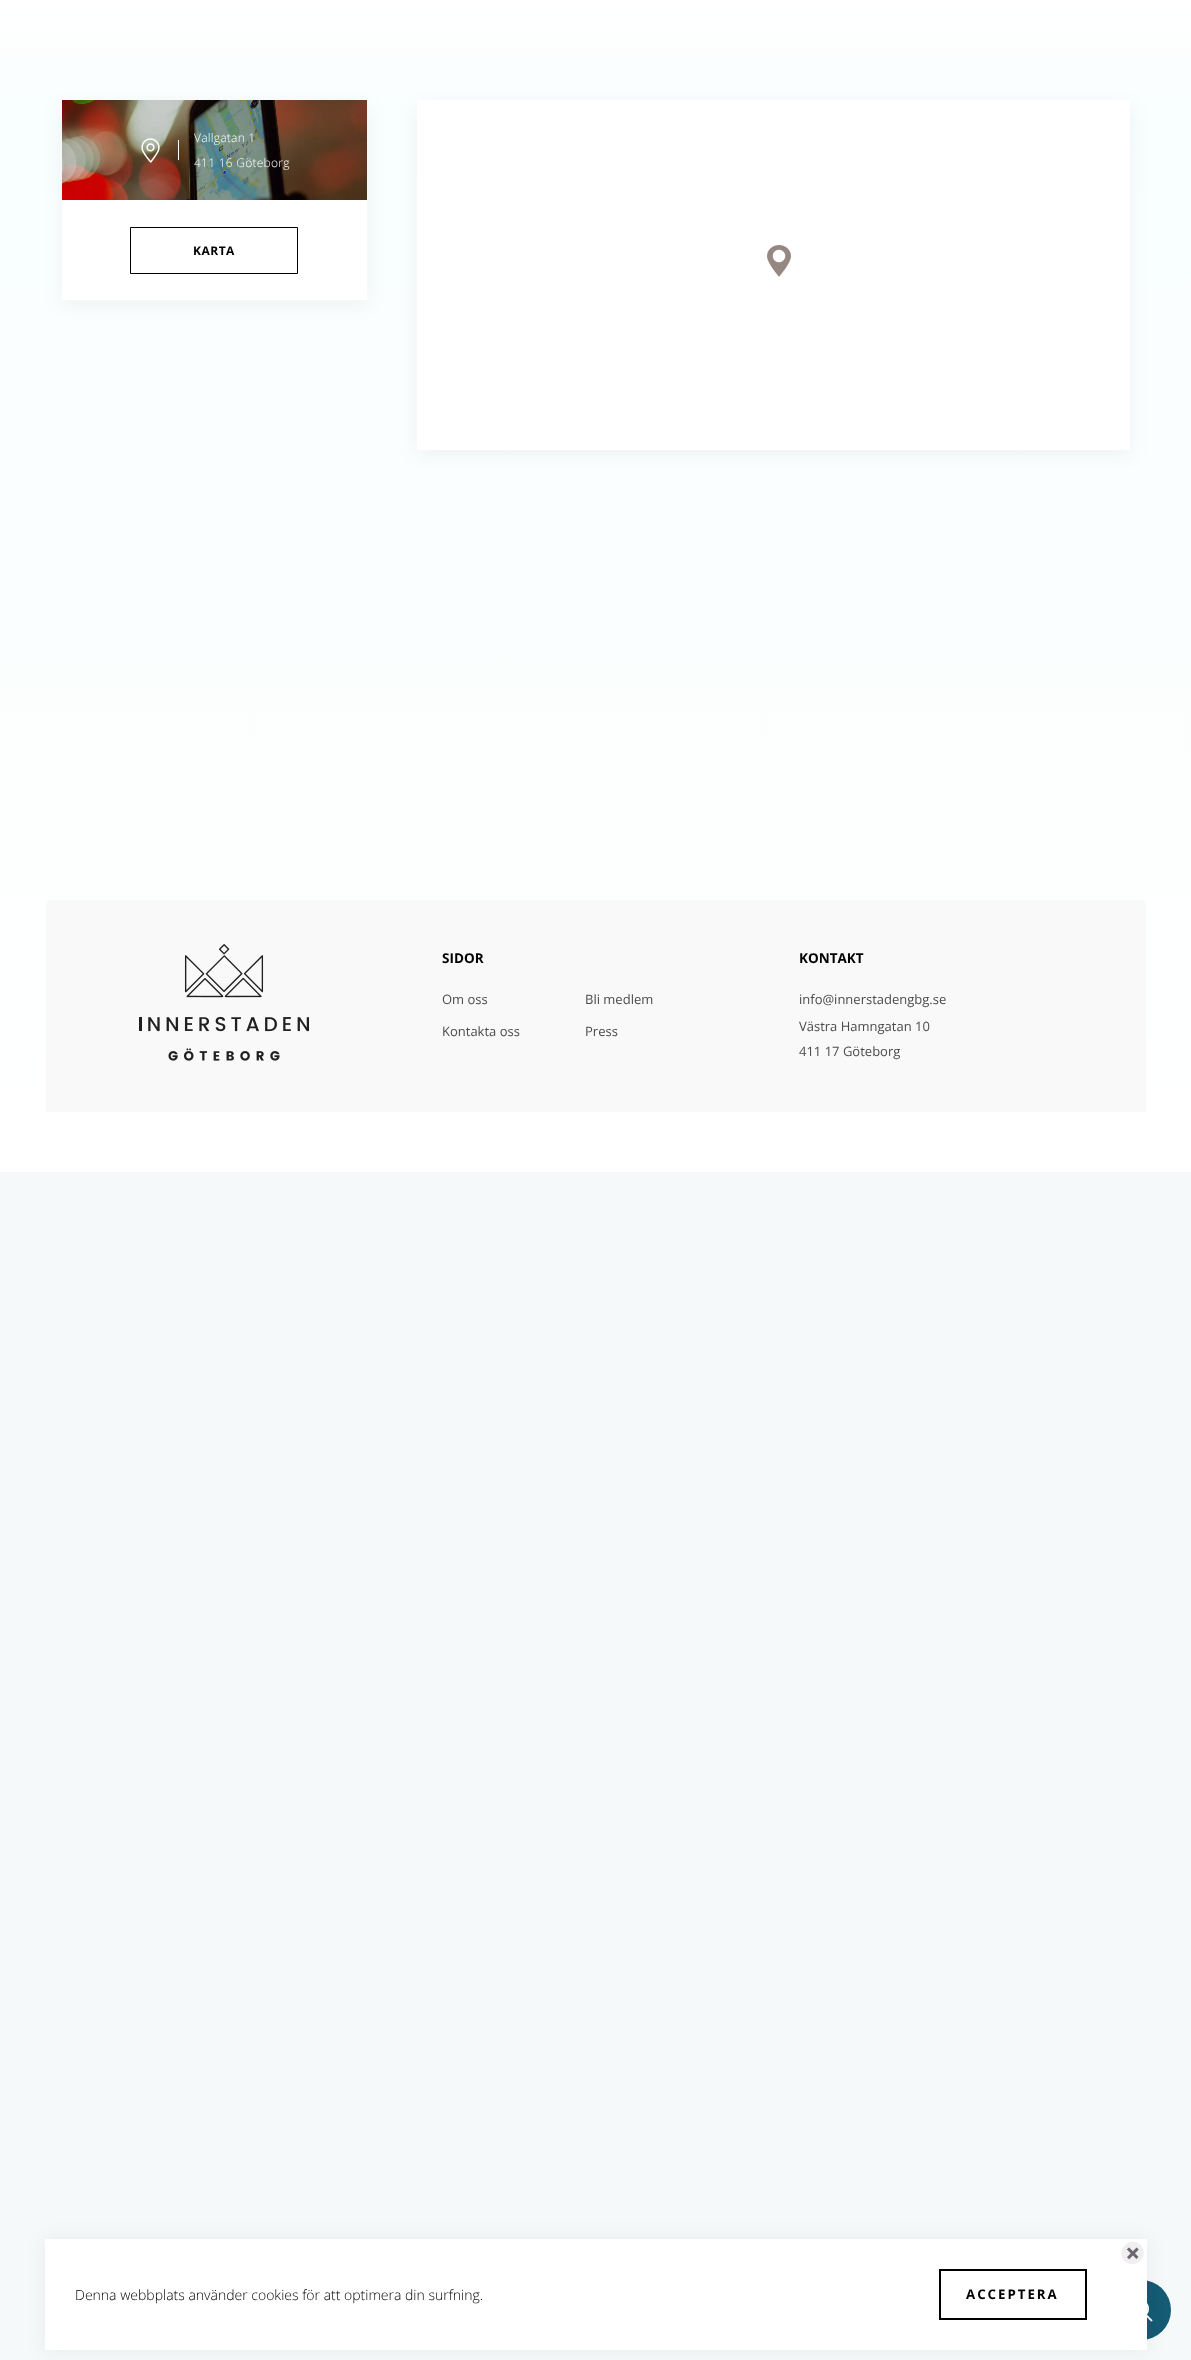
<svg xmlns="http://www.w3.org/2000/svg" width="1191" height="2360">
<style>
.a{font:300 12px Open Sans;letter-spacing:0.25px;fill:#fff}
.b{font:bold 12px Open Sans;letter-spacing:0.5px;fill:#000}
.c{font:bold 13.5px Open Sans;fill:#000}
.d{font:13px Open Sans;fill:#4b4b4b}
.e{font:300 14px Open Sans;fill:#000}
.f{font:bold 13.25px Open Sans;letter-spacing:2px;fill:#000}
</style>
<defs>
<linearGradient id="g1" gradientUnits="userSpaceOnUse" x1="595" y1="0" x2="596" y2="1172"><stop offset="0" stop-color="#fff"/><stop offset="0.1" stop-color="#f9fefe"/><stop offset="1" stop-color="#fff"/></linearGradient>
</defs>
<rect width="100%" height="100%" fill="#f6f9f9"/>
<path fill="url(#g1)" d="M0 0h1191v1172H0z"/>
<path fill="#0000000d" filter="blur(10px)" d="M62 105h305v200H62z"/>
<path fill="#fff" d="M62 200h305v100H62z"/>
<image href="1.png" x="62" y="100" width="305" height="100"/>
<image href="2.png" x="141" y="138" width="19" height="25"/>
<path fill="#fff" d="M178 140h1v20H178z"/>
<path fill="none" stroke="#000" d="M130.5 227.5h167v46H130.5z"/>
<path fill="#0000000d" filter="blur(10px)" d="M417 105h713v350H417z"/>
<path fill="#fff" d="M417 100h713v350H417z"/>
<image href="3.png" x="767" y="245" width="24" height="32"/>
<path fill="#faf9f9" d="M46 900h1100v212H46z"/>
<image href="4.png" x="139" y="944" width="170" height="117"/>
<circle fill="#145b73" cx="1141" cy="2310" r="30"/>
<image href="6.png" x="1147" y="2303" width="6" height="19"/>
<path fill="#0000000f" filter="blur(10px)" d="M45 2239h1102v111H45z"/>
<path fill="#fff" d="M45 2239h1102v111H45z"/>
<path fill="#efefef" d="M1140.5 2245c10 10.5-5.5 26-16 16c-10-10.5 5.5-26 16-16z"/>
<image href="5.png" x="1127" y="2247" width="12" height="13"/>
<path fill="none" stroke="#000" stroke-width="2" d="M940 2270h146v49H940z"/>
<text class="a" x="194" y="142">Vallgatan 1</text>
<text class="a" x="194" y="167">411 16 Göteborg</text>
<text class="b" x="193" y="255">KARTA</text>
<text class="c" x="442" y="963">SIDOR</text>
<text class="d" x="442" y="1004">Om oss</text>
<text class="d" x="585" y="1004">Bli medlem</text>
<text class="d" x="442" y="1036">Kontakta oss</text>
<text class="d" x="585" y="1036">Press</text>
<text class="c" x="799" y="963">KONTAKT</text>
<text class="d" x="799" y="1004">info@innerstadengbg.se</text>
<text class="d" x="799" y="1031">Västra Hamngatan 10</text>
<text class="d" x="799" y="1056">411 17 Göteborg</text>
<text class="e" x="75" y="2300">Denna webbplats använder cookies för att optimera din surfning.</text>
<text class="f" x="966" y="2299">ACCEPTERA</text>
</svg>
